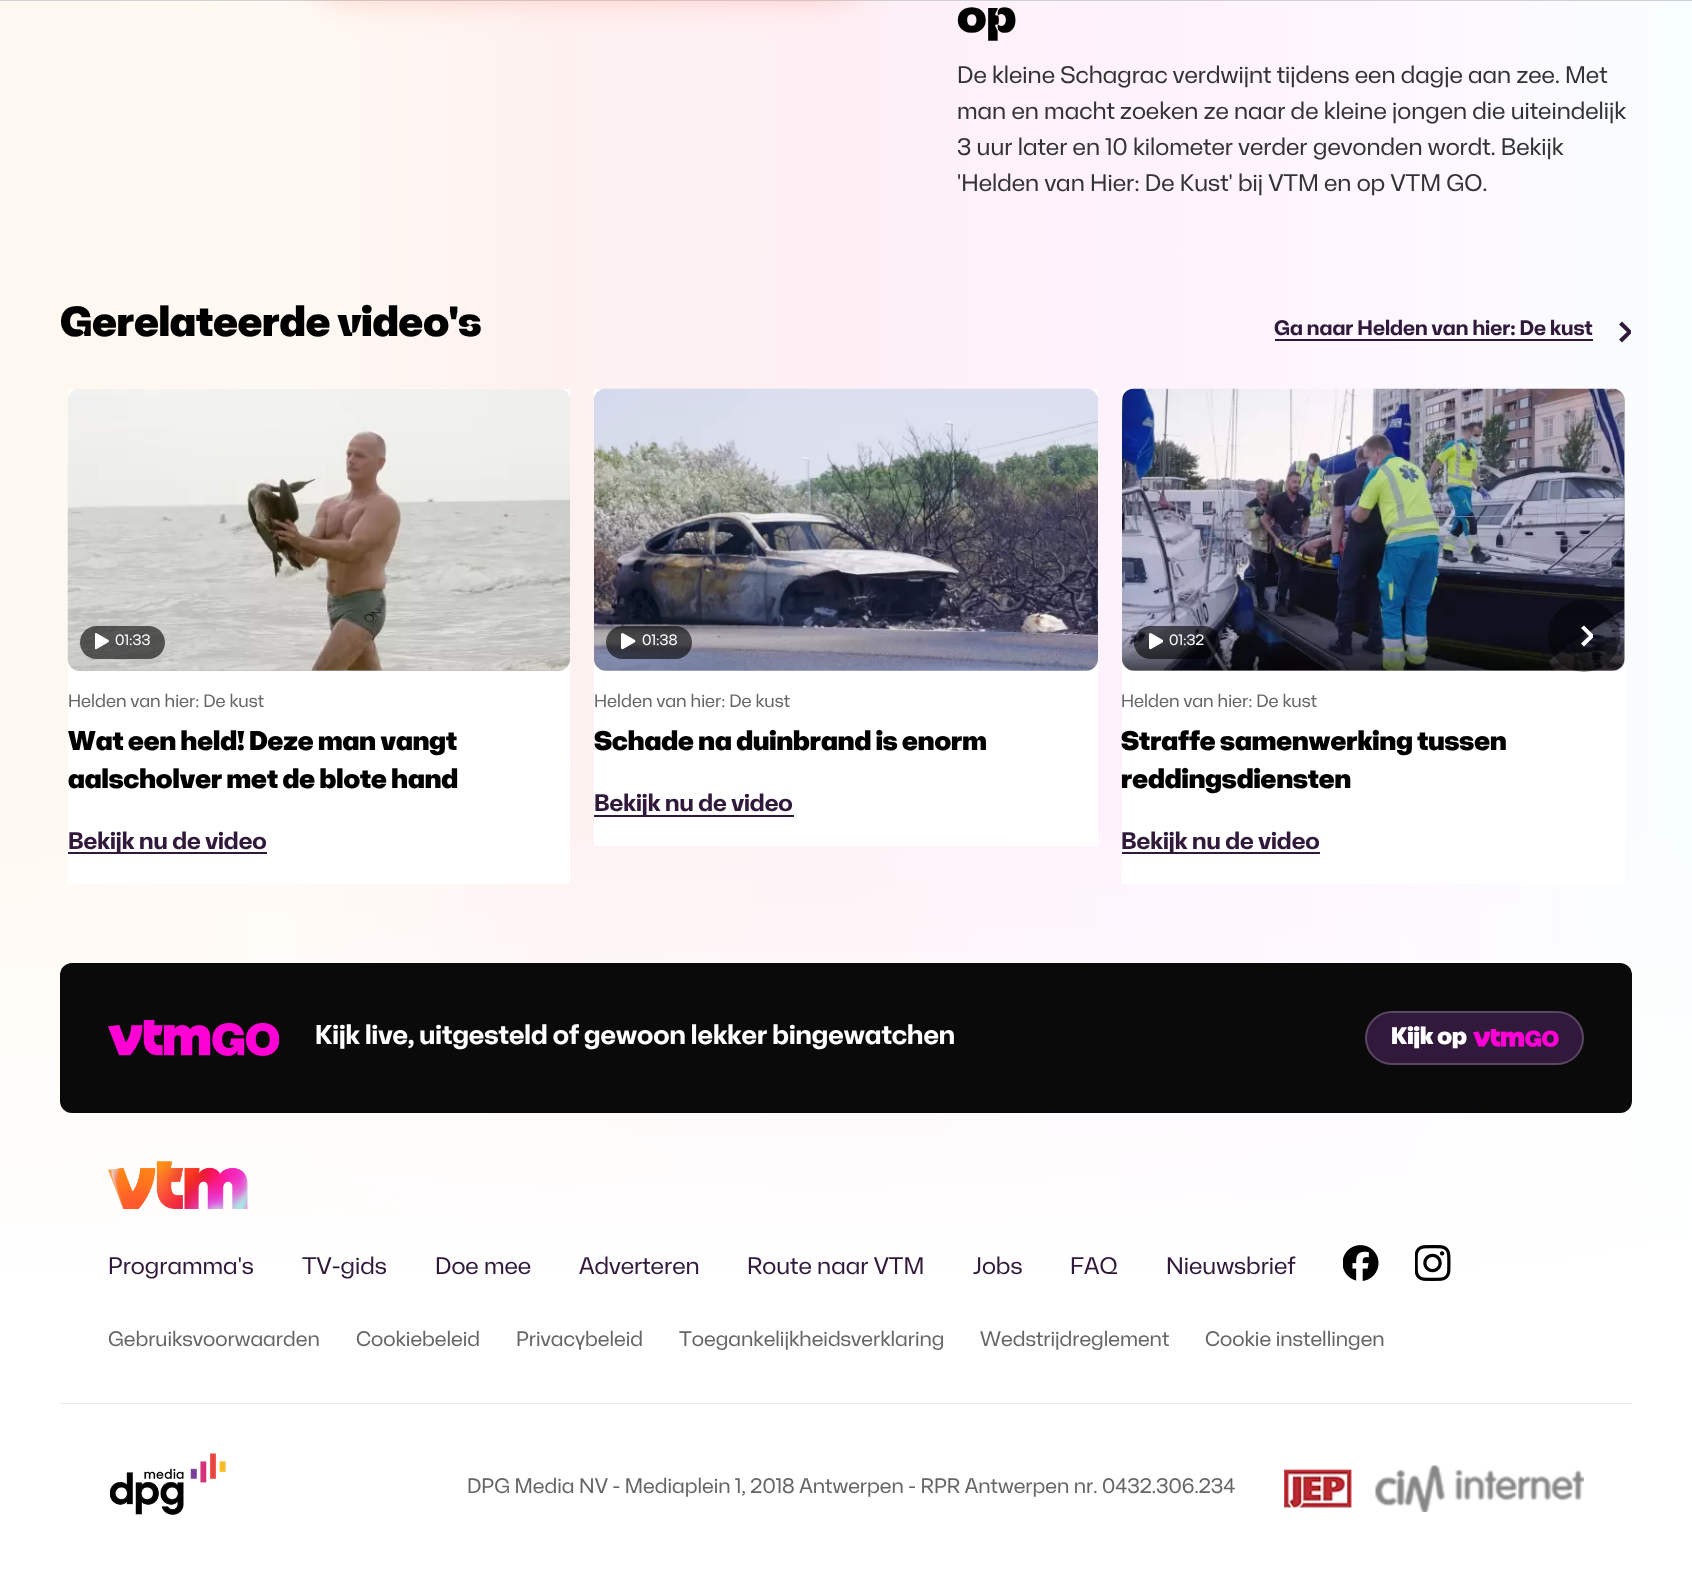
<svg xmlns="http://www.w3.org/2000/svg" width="1692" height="1573">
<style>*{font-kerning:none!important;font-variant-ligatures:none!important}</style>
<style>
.a{font:900 48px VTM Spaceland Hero;fill:#000}
.b{font:24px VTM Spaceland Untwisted;fill:#333}
.c{font:900 42px VTM Spaceland Hero;fill:#000}
.d{font:bold 21px VTM Spaceland Untwisted;fill:#31193b}
.e{font:15px VTM Spaceland Untwisted;fill:#fff}
.f{font:18px VTM Spaceland Untwisted;fill:#666}
.g{font:900 27px VTM Spaceland Untwisted;fill:#000}
.h{font:bold 24px VTM Spaceland Untwisted;fill:#31193b}
.i{font:bold 27px VTM Spaceland Untwisted;fill:#fff}
.j{font:900 24px VTM Spaceland Untwisted;fill:#fff}
.k{font:24px VTM Spaceland Untwisted;fill:#31193b}
.l{font:21px VTM Spaceland Untwisted;fill:#666}
</style>
<defs>
<linearGradient id="g1" gradientUnits="userSpaceOnUse" x1="0" y1="493" x2="1692" y2="493"><stop offset="0" stop-color="#fff8f0"/><stop offset="0.17" stop-color="#fff9f3"/><stop offset="0.33" stop-color="#fef1f0"/><stop offset="0.5" stop-color="#fef0f5"/><stop offset="0.67" stop-color="#fef2fd"/><stop offset="0.83" stop-color="#fef7ff"/><stop offset="1" stop-color="#f8fefe"/></linearGradient>
<linearGradient id="g2" gradientUnits="userSpaceOnUse" x1="846" y1="-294" x2="846" y2="1280"><stop offset="0.66" stop-color="#fff" stop-opacity="0"/><stop offset="1" stop-color="#fff"/></linearGradient>
</defs>
<rect width="100%" height="100%" fill="#fff"/>
<path fill="url(#g1)" d="M0 1h1692v1276H0z"/>
<path fill="url(#g2)" d="M0 838h1692v439H0z"/>
<path fill="#d1d1d1" d="M0 0h1692v1H0z"/>
<rect fill="#ff5c3d52" filter="blur(18px)" x="309" y="-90" width="563" height="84" rx="42"/>
<path fill="#31193b" d="M1275 339h318v2H1275z"/>
<path fill="#31193b" d="M1631 330.5v3l-9 9l-3-3l8-7.5l-8-7.5l3-3z"/>
<path fill="#fff" d="M68 389h502v495H68z"/>
<rect fill="#bebebe" x="68" y="389" width="502" height="282" rx="12"/>
<image href="1.png" x="67" y="389" width="503" height="282"/>
<rect fill="#00000099" x="80" y="626" width="85" height="33" rx="16.5"/>
<image href="2.png" x="95" y="633" width="14" height="17"/>
<path fill="#31193b" d="M68 852h199v2H68z"/>
<path fill="#fff" d="M594 389h504v457H594z"/>
<rect fill="#bebebe" x="594" y="389" width="504" height="282" rx="12"/>
<image href="3.png" x="594" y="388" width="504" height="283"/>
<rect fill="#00000099" x="606" y="626" width="86" height="33" rx="16.5"/>
<image href="4.png" x="621" y="633" width="15" height="17"/>
<path fill="#31193b" d="M594 815h200v2H594z"/>
<path fill="#fff" d="M1122 389h503v495H1122z"/>
<rect fill="#bebebe" x="1122" y="389" width="503" height="282" rx="12"/>
<image href="5.png" x="1122" y="388" width="503" height="283"/>
<rect fill="#00000099" x="1134" y="626" width="86" height="33" rx="16.5"/>
<image href="6.png" x="1149" y="633" width="14" height="17"/>
<path fill="#31193b" d="M1122 852h198v2H1122z"/>
<circle fill="#00000066" cx="1584" cy="636" r="36"/>
<path fill="#fff" d="M1593 634.5v3l-9 9l-3-3l8-7.5l-8-8l3-2.5z"/>
<rect fill="#0a0a0a" x="60" y="963" width="1572" height="150" rx="12"/>
<image href="7.png" x="108" y="1020" width="171" height="36"/>
<rect fill="#31193b" x="1365" y="1011" width="219" height="54" rx="27"/>
<rect fill="none" stroke="#ffffff33" stroke-width="2" x="1366" y="1012" width="217" height="52" rx="26"/>
<image href="8.png" x="1473" y="1029" width="86" height="18"/>
<image href="9.png" x="108" y="1161" width="140" height="48"/>
<image href="10.png" x="1343" y="1245" width="36" height="36"/>
<image href="11.png" x="1415" y="1245" width="36" height="36"/>
<path fill="#eaeaea" d="M60 1403h1572v1H60z"/>
<image href="12.png" x="109" y="1453" width="117" height="62"/>
<image href="13.png" x="1284" y="1469" width="68" height="39"/>
<image href="14.png" x="1375" y="1465" width="209" height="47"/>
<text class="a" x="957" y="32">op</text>
<text class="b" x="957" y="83">De kleine Schagrac verdwijnt tijdens een dagje aan zee. Met</text>
<text class="b" x="957" y="119">man en macht zoeken ze naar de kleine jongen die uiteindelijk</text>
<text class="b" x="957" y="155">3 uur later en 10 kilometer verder</text>
<text class="b" x="1313" y="155">gevonden wordt. Bekijk</text>
<text class="b" x="957" y="191">'Helden van Hier: De Kust' bij VTM en op VTM GO.</text>
<text class="c" x="60" y="336">Gerelateerde video's</text>
<text class="d" x="1274" y="335">Ga naar Helden van hier: De kust</text>
<text class="e" x="115" y="645">01:33</text>
<text class="f" x="68" y="707">Helden van hier: De kust</text>
<text class="g" x="68" y="750">Wat een held! Deze man vangt</text>
<text class="g" x="68" y="788">aalscholver met de blote hand</text>
<text class="h" x="68" y="849">Bekijk nu de video</text>
<text class="e" x="642" y="645">01:38</text>
<text class="f" x="594" y="707">Helden van hier: De kust</text>
<text class="g" x="594" y="750">Schade na duinbrand is enorm</text>
<text class="h" x="594" y="811">Bekijk nu de video</text>
<text class="e" x="1169" y="645">01:32</text>
<text class="f" x="1121" y="707">Helden van hier: De kust</text>
<text class="g" x="1121" y="750">Straffe samenwerking tussen</text>
<text class="g" x="1121" y="788">reddingsdiensten</text>
<text class="h" x="1121" y="849">Bekijk nu de video</text>
<text class="i" x="315" y="1044">Kijk live, uitgesteld of gewoon lekker bingewatchen</text>
<text class="j" x="1391" y="1044">Kijk op</text>
<text class="k" x="108" y="1274">Programma's</text>
<text class="k" x="302" y="1274">TV-gids</text>
<text class="k" x="435" y="1274">Doe mee</text>
<text class="k" x="579" y="1274">Adverteren</text>
<text class="k" x="747" y="1274">Route naar VTM</text>
<text class="k" x="973" y="1274">Jobs</text>
<text class="k" x="1070" y="1274">FAQ</text>
<text class="k" x="1166" y="1274">Nieuwsbrief</text>
<text class="l" x="108" y="1346">Gebruiksvoorwaarden</text>
<text class="l" x="356" y="1346">Cookiebeleid</text>
<text class="l" x="516" y="1346">Privacybeleid</text>
<text class="l" x="679" y="1346">Toegankelijkheidsverklaring</text>
<text class="l" x="980" y="1346">Wedstrijdreglement</text>
<text class="l" x="1205" y="1346">Cookie instellingen</text>
<text class="l" x="467" y="1493">DPG Media NV - Mediaplein 1, 2018 Antwerpen - RPR Antwerpen nr.</text>
<text class="l" x="1102" y="1493">0432.306.234</text>
</svg>
